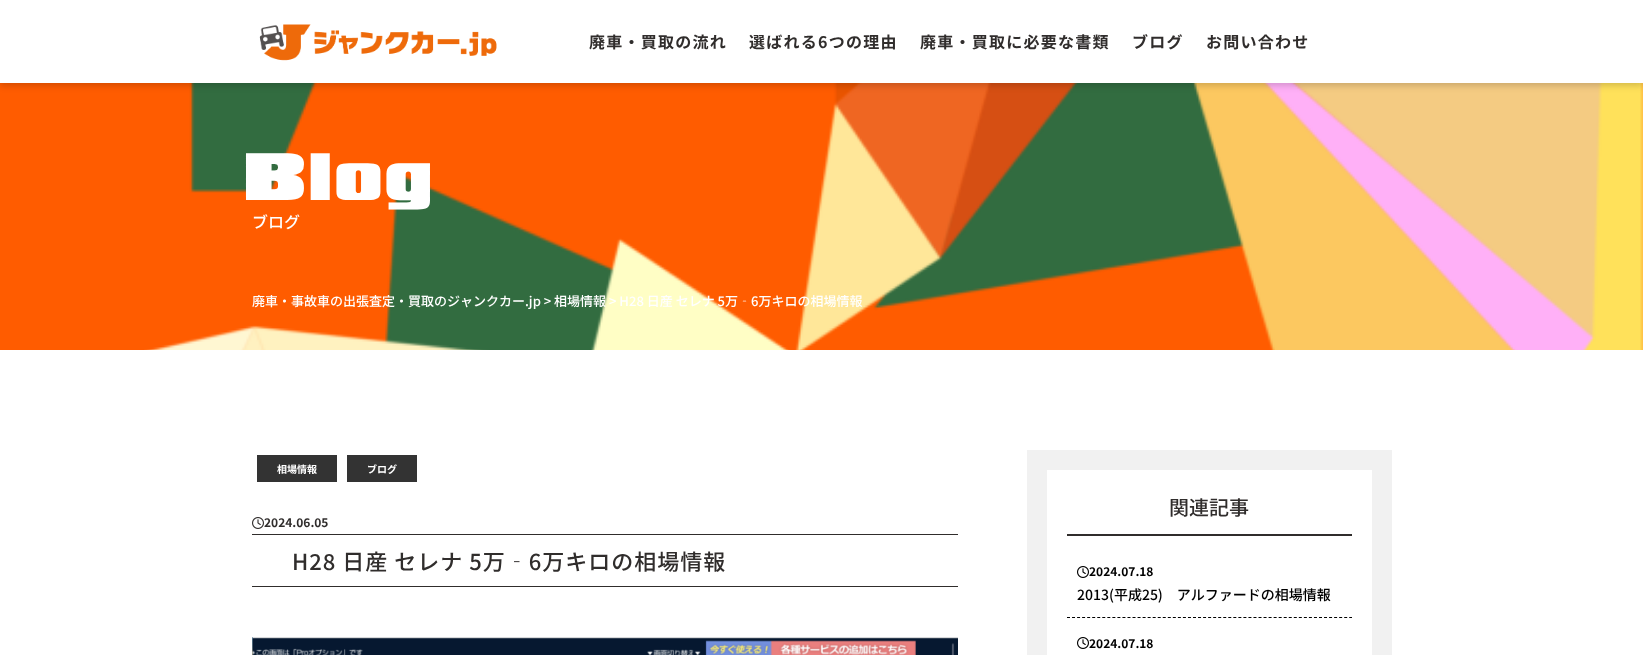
<svg xmlns="http://www.w3.org/2000/svg" width="1643" height="655">
<style>*{font-kerning:none!important;font-variant-ligatures:none!important}</style>
<style>
.a{font:bold 16px Noto Sans JP;letter-spacing:1.25px;fill:#302d2c}
.b{font:57.5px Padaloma;letter-spacing:1.5px;fill:#fff}
.c{font:500 16px Noto Sans JP;fill:#fff}
.d{font:500 13px Noto Sans JP;fill:#fff}
.e{font:bold 10px Noto Sans JP;fill:#fff}
.f{font:bold 12px Noto Sans JP;fill:#302d2c}
.g{font:500 22px Noto Sans JP;letter-spacing:1px;fill:#302d2c}
.h{font:500 20px Noto Sans JP;fill:#302d2c}
.i{font:bold 12px Noto Sans JP;fill:#000}
.j{font:500 14px Noto Sans JP;fill:#000}
</style>
<rect width="100%" height="100%" fill="#fff"/>
<path fill="#ff5c00" d="M0 83h1643v267H0z"/>
<image href="2.png" x="144" y="83" width="1499" height="267"/>
<path fill="#00000029" filter="blur(3px)" d="M0 3h1643v83H0z"/>
<path fill="#fff" d="M0 0h1643v83H0z"/>
<image href="1.png" x="259" y="24" width="238" height="37"/>
<path fill="#333" d="M257 455h80v27H257z"/>
<path fill="#333" d="M347 455h70v27H347z"/>
<path fill="#302d2c" d="M252 534h706v1H252z"/>
<path fill="#302d2c" d="M252 586h706v1H252z"/>
<image href="4.png" x="252" y="637" width="706" height="18"/>
<path fill="#f1f1f1" d="M1027 450h365v205H1027z"/>
<path fill="#fff" d="M1047 470h325v185H1047z"/>
<path fill="#302d2c" d="M1067 534h285v2H1067z"/>
<path fill="none" stroke="#000" stroke-dasharray="3 2.04" d="M1067 617.5h285"/>
<image href="5.png" x="1077" y="566" width="12" height="12"/>
<image href="5.png" x="1077" y="637" width="12" height="12"/>
<text class="a" x="589" y="48">廃車・買取の流れ</text>
<text class="a" x="749" y="48">選ばれる6つの理由</text>
<text class="a" x="920" y="48">廃車・買取に必要な書類</text>
<text class="a" x="1132" y="48">ブログ</text>
<text class="a" x="1206" y="48">お問い合わせ</text>
<text class="b" x="243" y="200">Blog</text>
<text class="c" x="252" y="228">ブログ</text>
<text class="d" x="252" y="306">廃車・事故車の出張査定・買取のジャンクカー.jp &gt; 相場情報 &gt; H28 日産 セレナ 5万‐6万キロの相場情報</text>
<text class="e" x="277" y="473">相場情報</text>
<text class="e" x="367" y="473">ブログ</text>
<text class="f" x="264" y="527">2024.06.05</text>
<image href="3.png" x="252" y="517" width="12" height="12"/>
<text class="g" x="292" y="570">H28 日産 セレナ 5万‐6万キロの相場情報</text>
<text class="h" x="1169" y="515">関連記事</text>
<text class="i" x="1089" y="576">2024.07.18</text>
<text class="j" x="1077" y="600">2013(平成25)　アルファードの相場情報</text>
<text class="i" x="1089" y="648">2024.07.18</text>
</svg>
